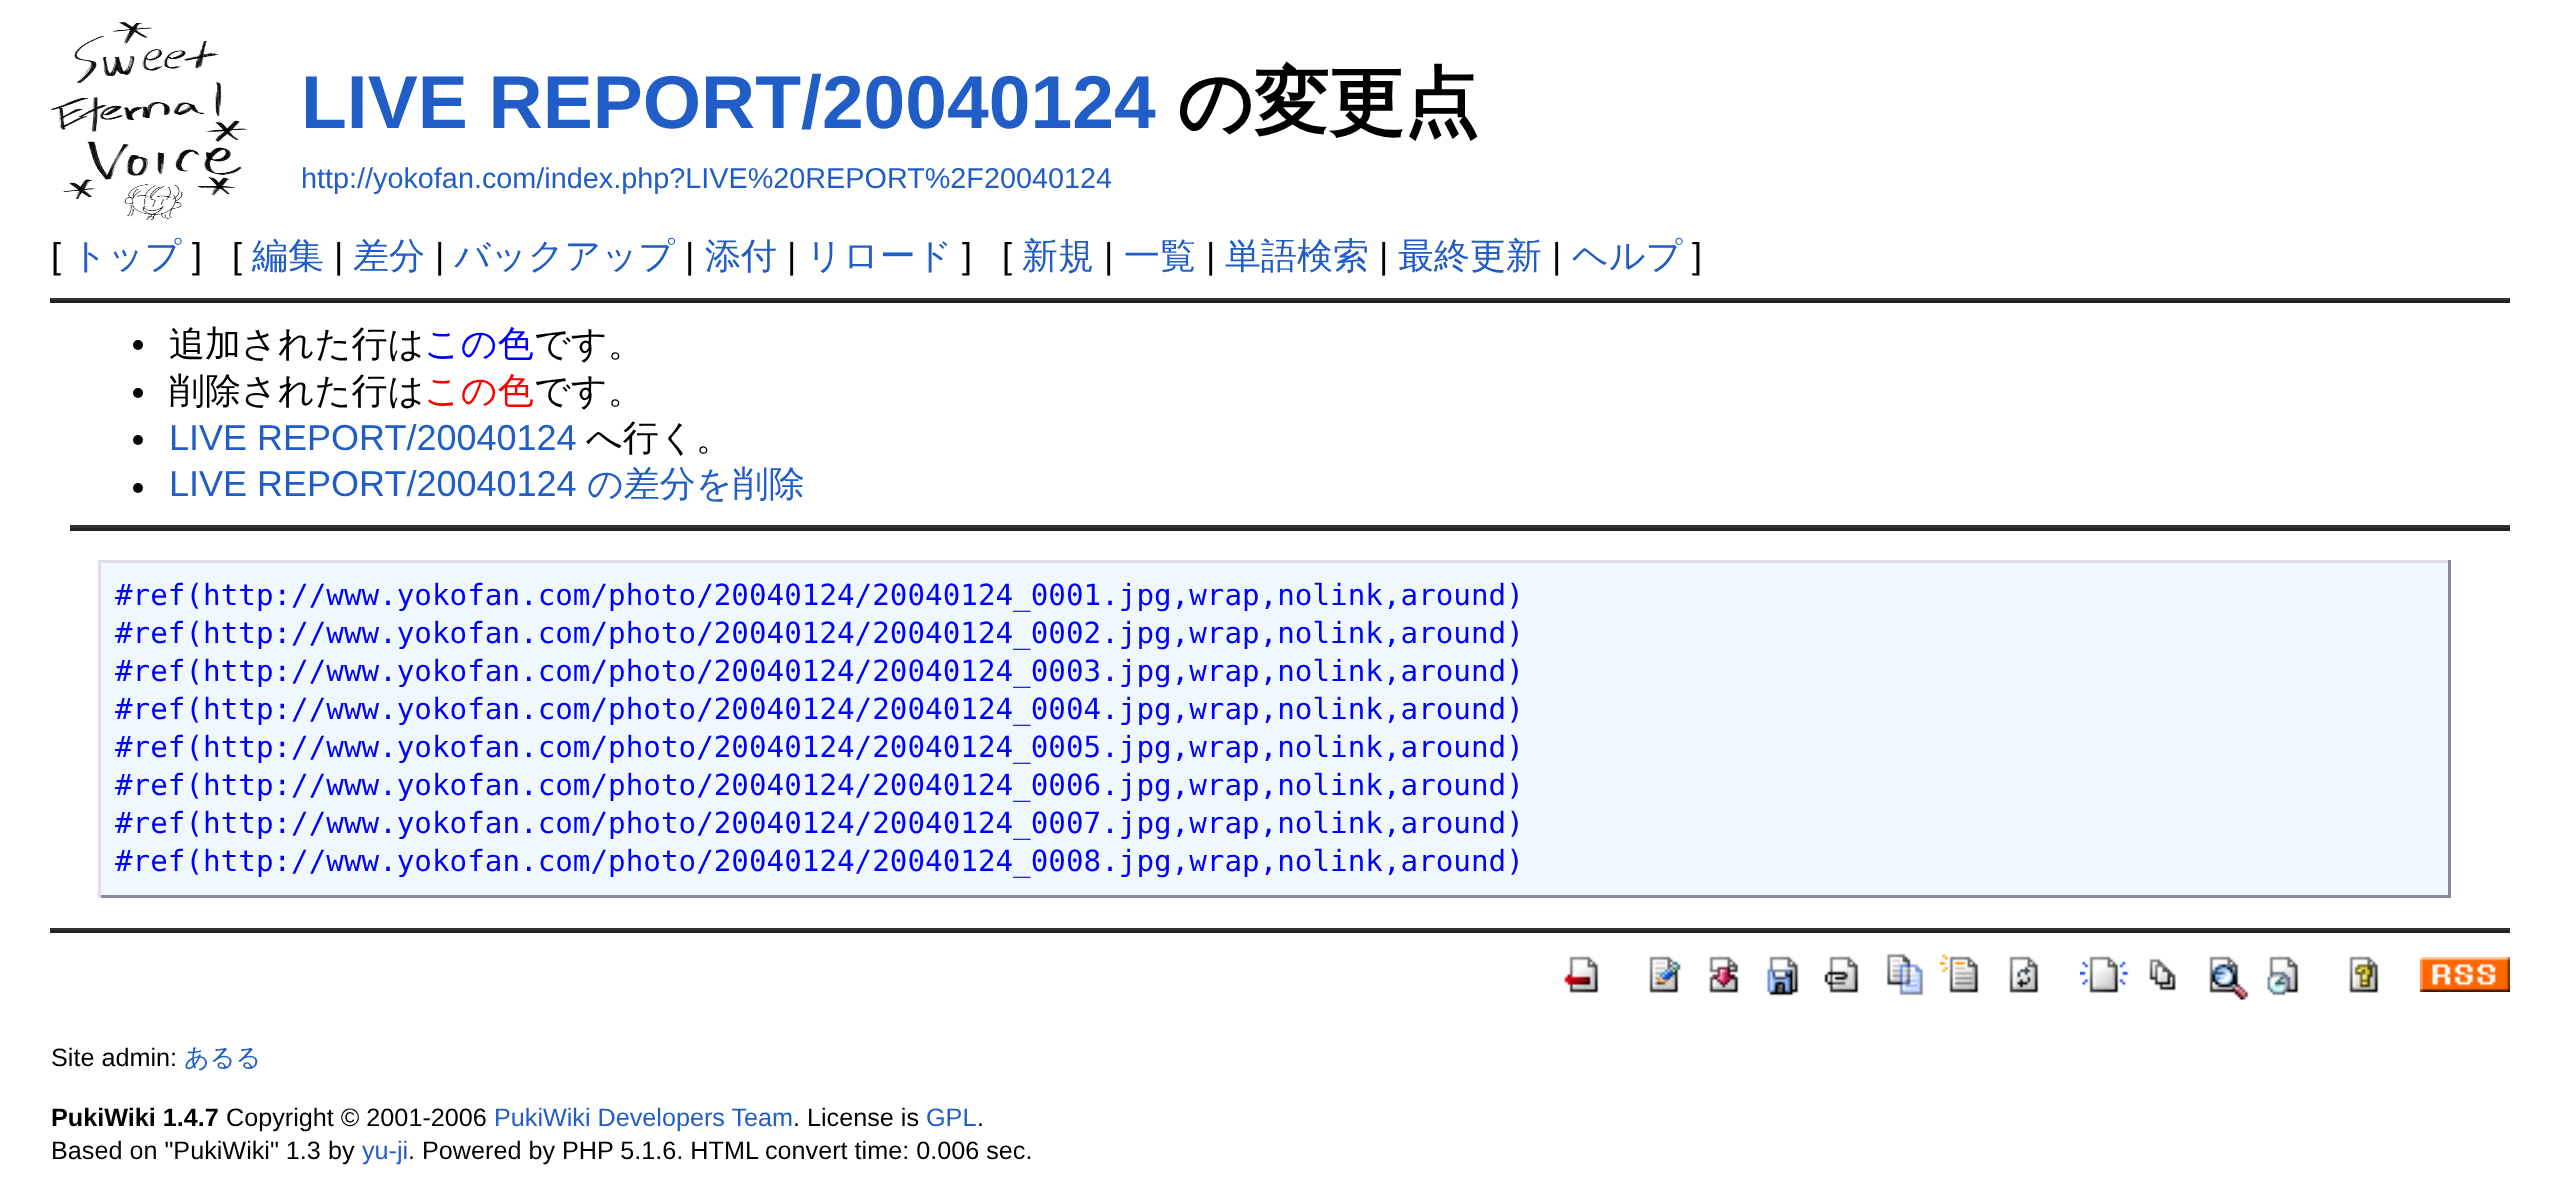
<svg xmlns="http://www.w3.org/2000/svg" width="2558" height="1181">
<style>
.a{font:bold 75px Liberation Sans;fill:#215dc6}
.b{font:bold 75px WenQuanYi Zen Hei;fill:#000}
.c{font:28.8px Liberation Sans;fill:#215dc6}
.d{font:36px Liberation Sans;fill:#000}
.e{font:500 36px WenQuanYi Zen Hei;fill:#215dc6}
.f{font:500 36px WenQuanYi Zen Hei;fill:#000}
.g{font:500 36px WenQuanYi Zen Hei;fill:#00f}
.h{font:500 36px WenQuanYi Zen Hei;fill:#f00}
.i{font:36px Liberation Sans;fill:#215dc6}
.j{font:29.25px DejaVu Sans Mono;fill:#00f}
.k{font:25.2px Liberation Sans;fill:#000}
.l{font:500 25.2px WenQuanYi Zen Hei;fill:#215dc6}
.m{font:bold 25.2px Liberation Sans;fill:#000}
.n{font:25.2px Liberation Sans;fill:#215dc6}
</style>
<rect width="100%" height="100%" fill="#fff"/>
<image href="1.png" x="50" y="22" width="197" height="199"/>
<path fill="#333" d="M50 298h2460v2H50z"/>
<path fill="#222" d="M50 300h2460v3H50z"/>
<circle fill="#000" cx="138" cy="345" r="5"/>
<circle fill="#000" cx="138" cy="393" r="5"/>
<circle fill="#000" cx="138" cy="440" r="5"/>
<circle fill="#000" cx="138" cy="488" r="5"/>
<path fill="#333" d="M70 525h2440v3H70z"/>
<path fill="#222" d="M70 528h2440v3H70z"/>
<path fill="#f0f8ff" d="M101 563h2347v332H101z"/>
<path fill="#dde" d="M98 560h2352v3H98z"/>
<path fill="#889" d="M2448 560h3v338H2448z"/>
<path fill="#889" d="M98 895h2352v3H98z"/>
<path fill="#dde" d="M98 560h3v338H98z"/>
<path fill="#333" d="M50 928h2460v2H50z"/>
<path fill="#222" d="M50 930h2460v3H50z"/>
<image href="2.png" x="1564" y="956" width="35" height="37"/>
<image href="3.png" x="1649" y="956" width="32" height="37"/>
<image href="4.png" x="1709" y="956" width="30" height="37"/>
<image href="5.png" x="1766" y="956" width="33" height="40"/>
<image href="6.png" x="1824" y="956" width="35" height="37"/>
<image href="7.png" x="1886" y="953" width="38" height="43"/>
<image href="8.png" x="1940" y="953" width="39" height="40"/>
<image href="9.png" x="2009" y="956" width="30" height="37"/>
<image href="10.png" x="2080" y="956" width="49" height="37"/>
<image href="11.png" x="2149" y="958" width="27" height="33"/>
<image href="12.png" x="2209" y="956" width="40" height="44"/>
<image href="13.png" x="2266" y="956" width="33" height="40"/>
<image href="14.png" x="2349" y="956" width="30" height="37"/>
<image href="15.png" x="2420" y="957" width="90" height="35"/>
<text class="a" x="301" y="128">LIVE REPORT/20040124</text>
<text class="b" x="1177" y="128">の変更点</text>
<text class="c" x="301" y="188">http://yokofan.com/index.php?LIVE%20REPORT%2F20040124</text>
<text class="d" x="51" y="268">[</text>
<text class="e" x="71" y="268">トップ</text>
<text class="d" x="192" y="268">]</text>
<text class="d" x="232" y="268">[</text>
<text class="e" x="252" y="268">編集</text>
<text class="d" x="334" y="268">|</text>
<text class="e" x="353" y="268">差分</text>
<text class="d" x="435" y="268">|</text>
<text class="e" x="454" y="268">バックアップ</text>
<text class="d" x="685" y="268">|</text>
<text class="e" x="705" y="268">添付</text>
<text class="d" x="787" y="268">|</text>
<text class="e" x="806" y="268">リロード</text>
<text class="d" x="962" y="268">]</text>
<text class="d" x="1002" y="268">[</text>
<text class="e" x="1022" y="268">新規</text>
<text class="d" x="1104" y="268">|</text>
<text class="e" x="1124" y="268">一覧</text>
<text class="d" x="1206" y="268">|</text>
<text class="e" x="1225" y="268">単語検索</text>
<text class="d" x="1379" y="268">|</text>
<text class="e" x="1398" y="268">最終更新</text>
<text class="d" x="1552" y="268">|</text>
<text class="e" x="1572" y="268">ヘルプ</text>
<text class="d" x="1692" y="268">]</text>
<text class="f" x="169" y="356">追加された行は</text>
<text class="g" x="424" y="356">この色</text>
<text class="f" x="534" y="356">です。</text>
<text class="f" x="169" y="403">削除された行は</text>
<text class="h" x="424" y="403">この色</text>
<text class="f" x="534" y="403">です。</text>
<text class="i" x="169" y="450">LIVE REPORT/20040124</text>
<text class="f" x="586" y="450">へ行く。</text>
<text class="i" x="169" y="496">LIVE REPORT/20040124</text>
<text class="e" x="587" y="496">の差分を削除</text>
<text class="j" x="115" y="605">#ref(http://www.yokofan.com/photo/20040124/20040124_0001.jpg,wrap,nolink,around)</text>
<text class="j" x="115" y="643">#ref(http://www.yokofan.com/photo/20040124/20040124_0002.jpg,wrap,nolink,around)</text>
<text class="j" x="115" y="681">#ref(http://www.yokofan.com/photo/20040124/20040124_0003.jpg,wrap,nolink,around)</text>
<text class="j" x="115" y="719">#ref(http://www.yokofan.com/photo/20040124/20040124_0004.jpg,wrap,nolink,around)</text>
<text class="j" x="115" y="757">#ref(http://www.yokofan.com/photo/20040124/20040124_0005.jpg,wrap,nolink,around)</text>
<text class="j" x="115" y="795">#ref(http://www.yokofan.com/photo/20040124/20040124_0006.jpg,wrap,nolink,around)</text>
<text class="j" x="115" y="833">#ref(http://www.yokofan.com/photo/20040124/20040124_0007.jpg,wrap,nolink,around)</text>
<text class="j" x="115" y="871">#ref(http://www.yokofan.com/photo/20040124/20040124_0008.jpg,wrap,nolink,around)</text>
<text class="k" x="51" y="1066">Site admin:</text>
<text class="l" x="184" y="1066">あるる</text>
<text class="m" x="51" y="1126">PukiWiki 1.4.7</text>
<text class="k" x="226" y="1126">Copyright © 2001-2006</text>
<text class="n" x="494" y="1126">PukiWiki Developers Team</text>
<text class="k" x="793" y="1126">. License is</text>
<text class="n" x="926" y="1126">GPL</text>
<text class="k" x="977" y="1126">.</text>
<text class="k" x="51" y="1159">Based on "PukiWiki" 1.3 by</text>
<text class="n" x="362" y="1159">yu-ji</text>
<text class="k" x="408" y="1159">. Powered by PHP 5.1.6. HTML convert time: 0.006 sec.</text>
</svg>
